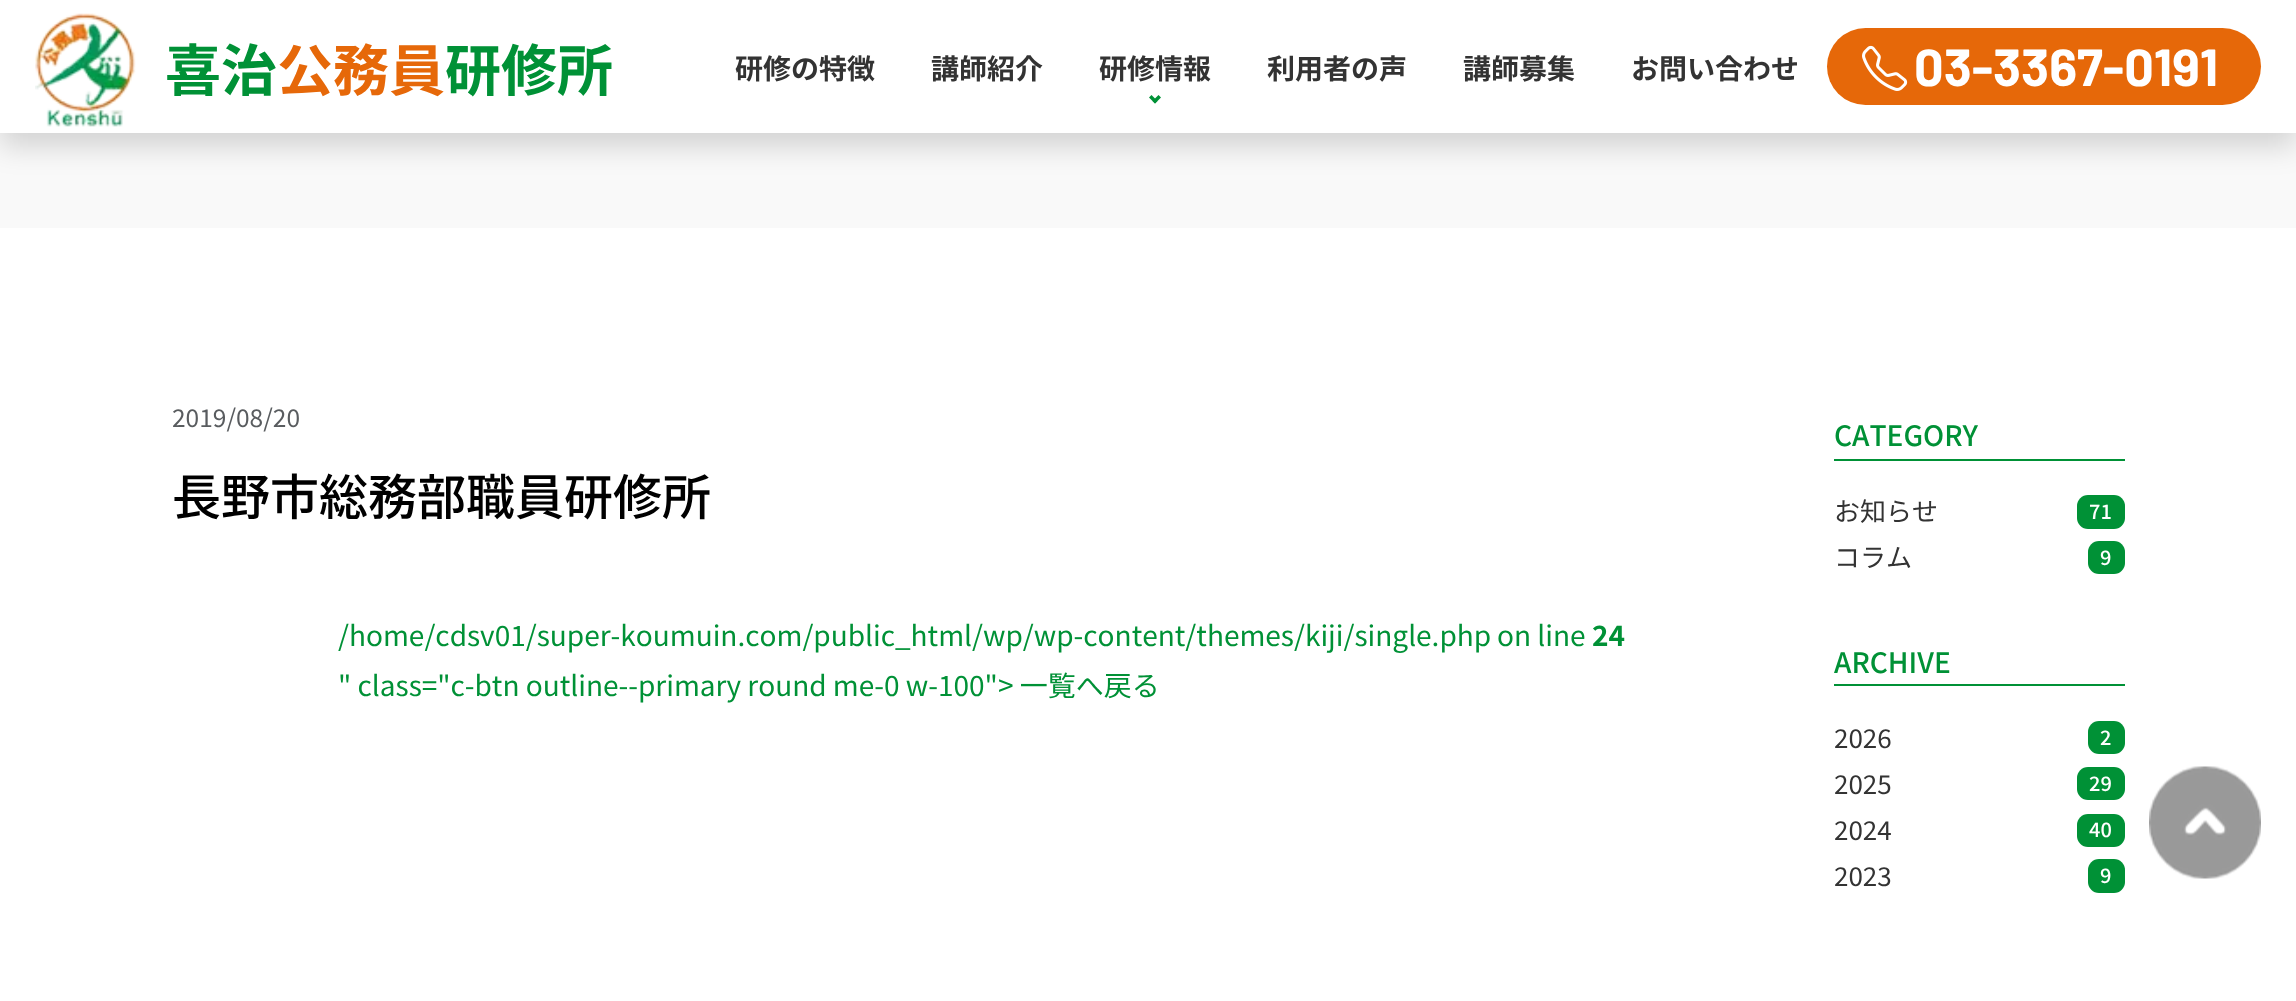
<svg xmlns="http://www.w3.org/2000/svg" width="2296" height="1001">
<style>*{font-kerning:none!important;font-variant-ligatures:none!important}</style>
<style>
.a{font:bold 56px Noto Sans JP;fill:#009136}
.b{font:bold 56px Noto Sans JP;fill:#e66809}
.c{font:bold 28px Noto Sans JP;fill:#333}
.d{font:bold 52px Barlow;fill:#fff}
.e{font:24.5px Noto Sans JP;fill:#595c5f}
.f{font:500 49px Noto Sans JP;fill:#000}
.g{font:28px Noto Sans JP;fill:#009136}
.h{font:bold 28px Noto Sans JP;fill:#009136}
.i{font:500 28px Noto Sans JP;fill:#009136}
.j{font:26px Noto Sans JP;fill:#333}
.k{font:500 20px Noto Sans JP;fill:#fff}
</style>
<rect width="100%" height="100%" fill="#f9f9f9"/>
<path fill="#00000026" filter="blur(14px)" d="M0 14h2296v133H0z"/>
<path fill="#fff" d="M0 0h2296v133H0z"/>
<image href="1.png" x="35" y="13" width="101" height="114"/>
<path fill="#009136" d="M1161 97.5l-6 6l-2.5-2.5l6-6z"/>
<path fill="#009136" d="M1157.5 101l-2.5 2.5l-6-6l2.5-2.5z"/>
<rect fill="#e66809" x="1827" y="28" width="434" height="77" rx="38.5"/>
<image href="2.png" x="1862" y="45" width="46" height="46"/>
<path fill="#fff" d="M0 228h2296v773H0z"/>
<path fill="#009136" d="M1834 459h291v2H1834z"/>
<rect fill="#009136" x="2077" y="495" width="48" height="34" rx="11"/>
<rect fill="#009136" x="2088" y="541" width="37" height="33" rx="11"/>
<path fill="#009136" d="M1834 684h291v2H1834z"/>
<rect fill="#009136" x="2088" y="721" width="37" height="33" rx="11"/>
<rect fill="#009136" x="2077" y="767" width="48" height="33" rx="11"/>
<rect fill="#009136" x="2077" y="814" width="48" height="33" rx="11"/>
<rect fill="#009136" x="2088" y="859" width="37" height="34" rx="11"/>
<image href="3.png" x="2149" y="766" width="112" height="113"/>
<text class="a" x="165" y="91">喜治</text>
<text class="b" x="277" y="91">公務員</text>
<text class="a" x="445" y="91">研修所</text>
<text class="c" x="735" y="79">研修の特徴</text>
<text class="c" x="931" y="79">講師紹介</text>
<text class="c" x="1099" y="79">研修情報</text>
<text class="c" x="1267" y="79">利用者の声</text>
<text class="c" x="1463" y="79">講師募集</text>
<text class="c" x="1631" y="79">お問い合わせ</text>
<text class="d" x="1914" y="86">03-3367-0191</text>
<text class="e" x="172" y="427">2019/08/20</text>
<text class="f" x="172" y="515">長野市総務部職員研修所</text>
<text class="g" x="338" y="646">/home/cdsv01/super-koumuin.com/public_html/wp/wp-content/themes/kiji/single.php</text>
<text class="g" x="1497" y="646">on line</text>
<text class="h" x="1592" y="646">24</text>
<text class="g" x="338" y="696">" class="c-btn outline--primary round me-0 w-100"&gt; 一覧へ戻る</text>
<text class="i" x="1834" y="446">CATEGORY</text>
<text class="j" x="1834" y="521">お知らせ</text>
<text class="k" x="2089" y="519">71</text>
<text class="j" x="1834" y="567">コラム</text>
<text class="k" x="2100" y="565">9</text>
<text class="i" x="1834" y="673">ARCHIVE</text>
<text class="j" x="1834" y="748">2026</text>
<text class="k" x="2100" y="745">2</text>
<text class="j" x="1834" y="794">2025</text>
<text class="k" x="2089" y="791">29</text>
<text class="j" x="1834" y="840">2024</text>
<text class="k" x="2089" y="837">40</text>
<text class="j" x="1834" y="886">2023</text>
<text class="k" x="2100" y="883">9</text>
</svg>
